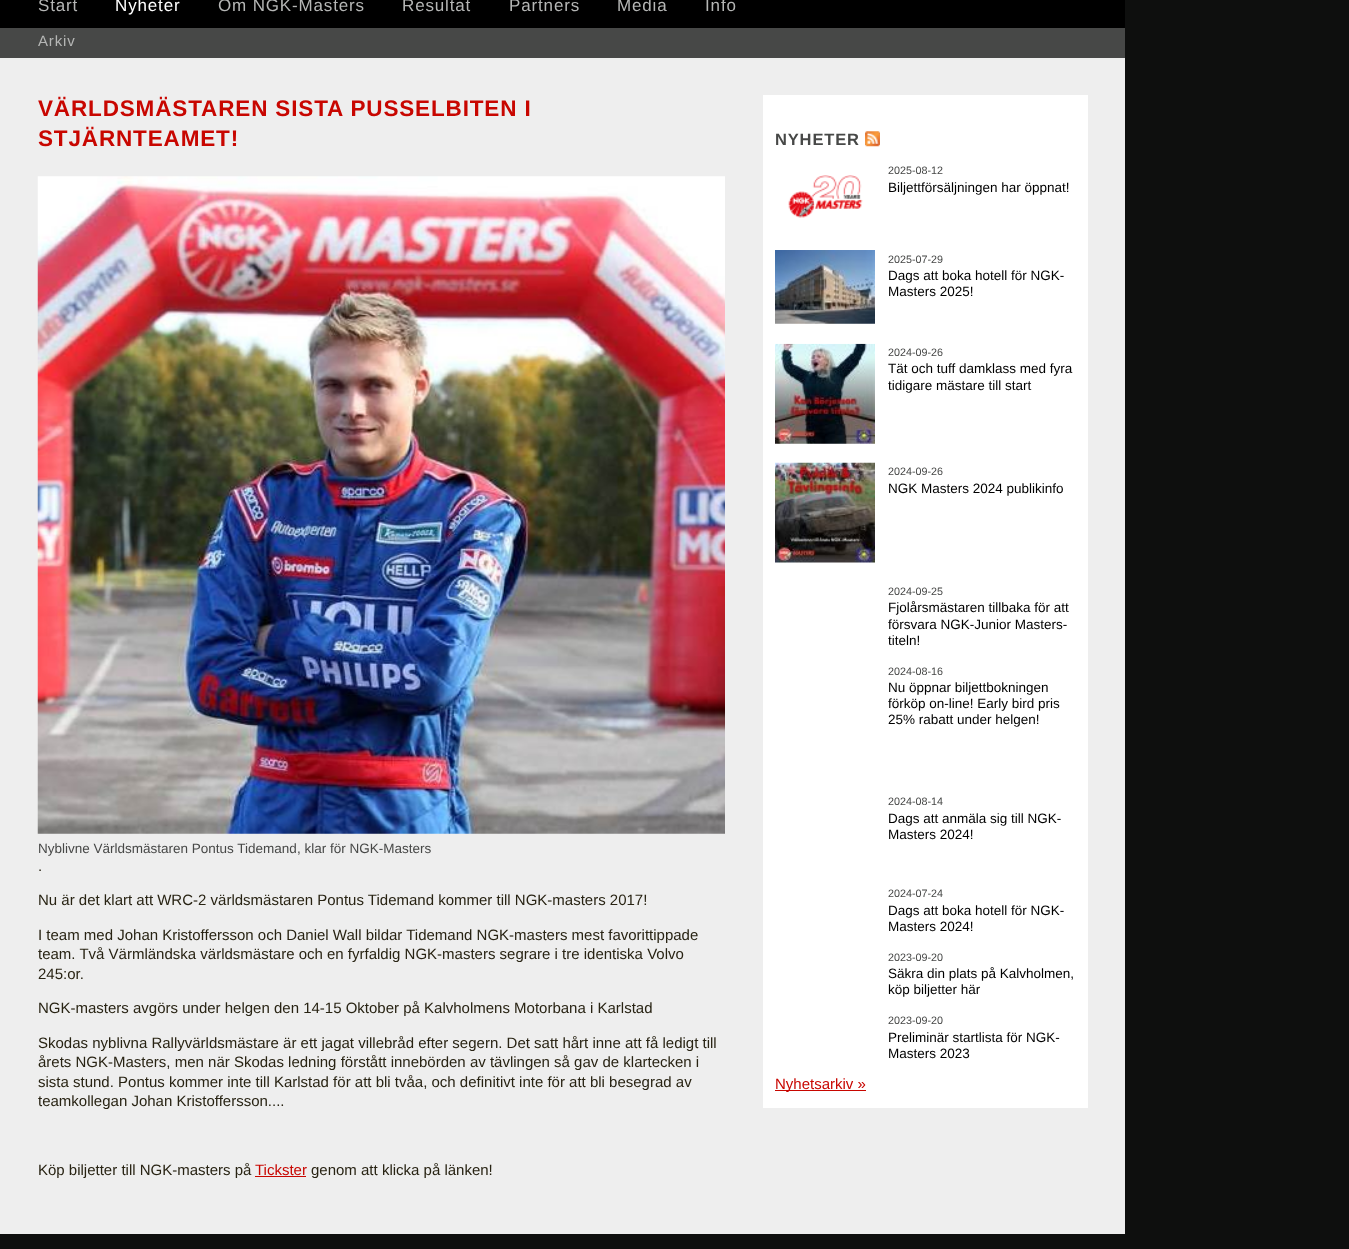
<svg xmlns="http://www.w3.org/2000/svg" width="1349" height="1249">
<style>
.a{font:17px Liberation Sans;letter-spacing:0.85px;fill:#b5b6b5}
.b{font:17px Liberation Sans;letter-spacing:0.85px;fill:#fff}
.c{font:15px Liberation Sans;letter-spacing:0.85px;fill:#b5b6b5}
.d{font:bold 22.5px Liberation Sans;letter-spacing:0.85px;fill:#c80600}
.e{font:13.5px Liberation Sans;fill:#474847}
.f{font:15px Liberation Sans;fill:#282313}
.g{font:15px Liberation Sans;fill:#c80600}
.h{font:bold 16.5px Liberation Sans;letter-spacing:0.85px;fill:#474847}
.i{font:10.75px Liberation Sans;fill:#474847}
.j{font:13.5px Liberation Sans;fill:#000}
</style>
<rect width="100%" height="100%" fill="#0e0f0e"/>
<path fill="#000" d="M0 0h1125v28H0z"/>
<path fill="#474847" d="M0 28h1125v30H0z"/>
<path fill="#eee" d="M0 58h1125v1176H0z"/>
<image href="1.png" x="37" y="176" width="688" height="658"/>
<path fill="#c80600" d="M255 1176h51v1H255z"/>
<path fill="#fff" d="M763 95h325v1013H763z"/>
<image href="2.png" x="865" y="131" width="15" height="16"/>
<image href="3.png" x="788" y="175" width="75" height="43"/>
<image href="4.png" x="775" y="250" width="100" height="74"/>
<image href="5.png" x="775" y="343" width="100" height="101"/>
<image href="6.png" x="775" y="462" width="100" height="101"/>
<path fill="#c80600" d="M775 1090h91v1H775z"/>
<text class="a" x="38" y="11">Start</text>
<text class="b" x="115" y="11">Nyheter</text>
<text class="a" x="218" y="11">Om NGK-Masters</text>
<text class="a" x="402" y="11">Resultat</text>
<text class="a" x="509" y="11">Partners</text>
<text class="a" x="617" y="11">Media</text>
<text class="a" x="705" y="11">Info</text>
<text class="c" x="38" y="46">Arkiv</text>
<text class="d" x="38" y="116">VÄRLDSMÄSTAREN SISTA PUSSELBITEN I</text>
<text class="d" x="38" y="146">STJÄRNTEAMET!</text>
<text class="e" x="38" y="853">Nyblivne Världsmästaren Pontus Tidemand, klar för NGK-Masters</text>
<text class="f" x="38" y="871">.</text>
<text class="f" x="38" y="905">Nu är det klart att WRC-2 världsmästaren Pontus Tidemand kommer till NGK-masters 2017!</text>
<text class="f" x="38" y="940">I team med Johan Kristoffersson och Daniel Wall bildar Tidemand NGK-masters mest favorittippade</text>
<text class="f" x="38" y="959">team. Två Värmländska världsmästare och en fyrfaldig NGK-masters segrare i tre identiska Volvo</text>
<text class="f" x="38" y="979">245:or.</text>
<text class="f" x="38" y="1013">NGK-masters avgörs under helgen den 14-15 Oktober på Kalvholmens Motorbana i Karlstad</text>
<text class="f" x="38" y="1048">Skodas nyblivna Rallyvärldsmästare är ett jagat villebråd efter segern. Det satt hårt inne att få ledigt till</text>
<text class="f" x="38" y="1067">årets NGK-Masters, men när Skodas ledning förstått innebörden av tävlingen så gav de klartecken i</text>
<text class="f" x="38" y="1087">sista stund. Pontus kommer inte till Karlstad för att bli tvåa, och definitivt inte för att bli besegrad av</text>
<text class="f" x="38" y="1106">teamkollegan Johan Kristoffersson....</text>
<text class="f" x="38" y="1175">Köp biljetter till NGK-masters på</text>
<text class="g" x="255" y="1175">Tickster</text>
<text class="f" x="311" y="1175">genom att klicka på länken!</text>
<text class="h" x="775" y="145">NYHETER</text>
<text class="i" x="888" y="174">2025-08-12</text>
<text class="j" x="888" y="192">Biljettförsäljningen har öppnat!</text>
<text class="i" x="888" y="263">2025-07-29</text>
<text class="j" x="888" y="280">Dags att boka hotell för NGK-</text>
<text class="j" x="888" y="296">Masters 2025!</text>
<text class="i" x="888" y="356">2024-09-26</text>
<text class="j" x="888" y="373">Tät och tuff damklass med fyra</text>
<text class="j" x="888" y="390">tidigare mästare till start</text>
<text class="i" x="888" y="475">2024-09-26</text>
<text class="j" x="888" y="493">NGK Masters 2024 publikinfo</text>
<text class="i" x="888" y="595">2024-09-25</text>
<text class="j" x="888" y="612">Fjolårsmästaren tillbaka för att</text>
<text class="j" x="888" y="629">försvara NGK-Junior Masters-</text>
<text class="j" x="888" y="645">titeln!</text>
<text class="i" x="888" y="675">2024-08-16</text>
<text class="j" x="888" y="692">Nu öppnar biljettbokningen</text>
<text class="j" x="888" y="708">förköp on-line! Early bird pris</text>
<text class="j" x="888" y="724">25% rabatt under helgen!</text>
<text class="i" x="888" y="805">2024-08-14</text>
<text class="j" x="888" y="823">Dags att anmäla sig till NGK-</text>
<text class="j" x="888" y="839">Masters 2024!</text>
<text class="i" x="888" y="897">2024-07-24</text>
<text class="j" x="888" y="915">Dags att boka hotell för NGK-</text>
<text class="j" x="888" y="931">Masters 2024!</text>
<text class="i" x="888" y="961">2023-09-20</text>
<text class="j" x="888" y="978">Säkra din plats på Kalvholmen,</text>
<text class="j" x="888" y="994">köp biljetter här</text>
<text class="i" x="888" y="1024">2023-09-20</text>
<text class="j" x="888" y="1042">Preliminär startlista för NGK-</text>
<text class="j" x="888" y="1058">Masters 2023</text>
<text class="g" x="775" y="1089">Nyhetsarkiv »</text>
</svg>
